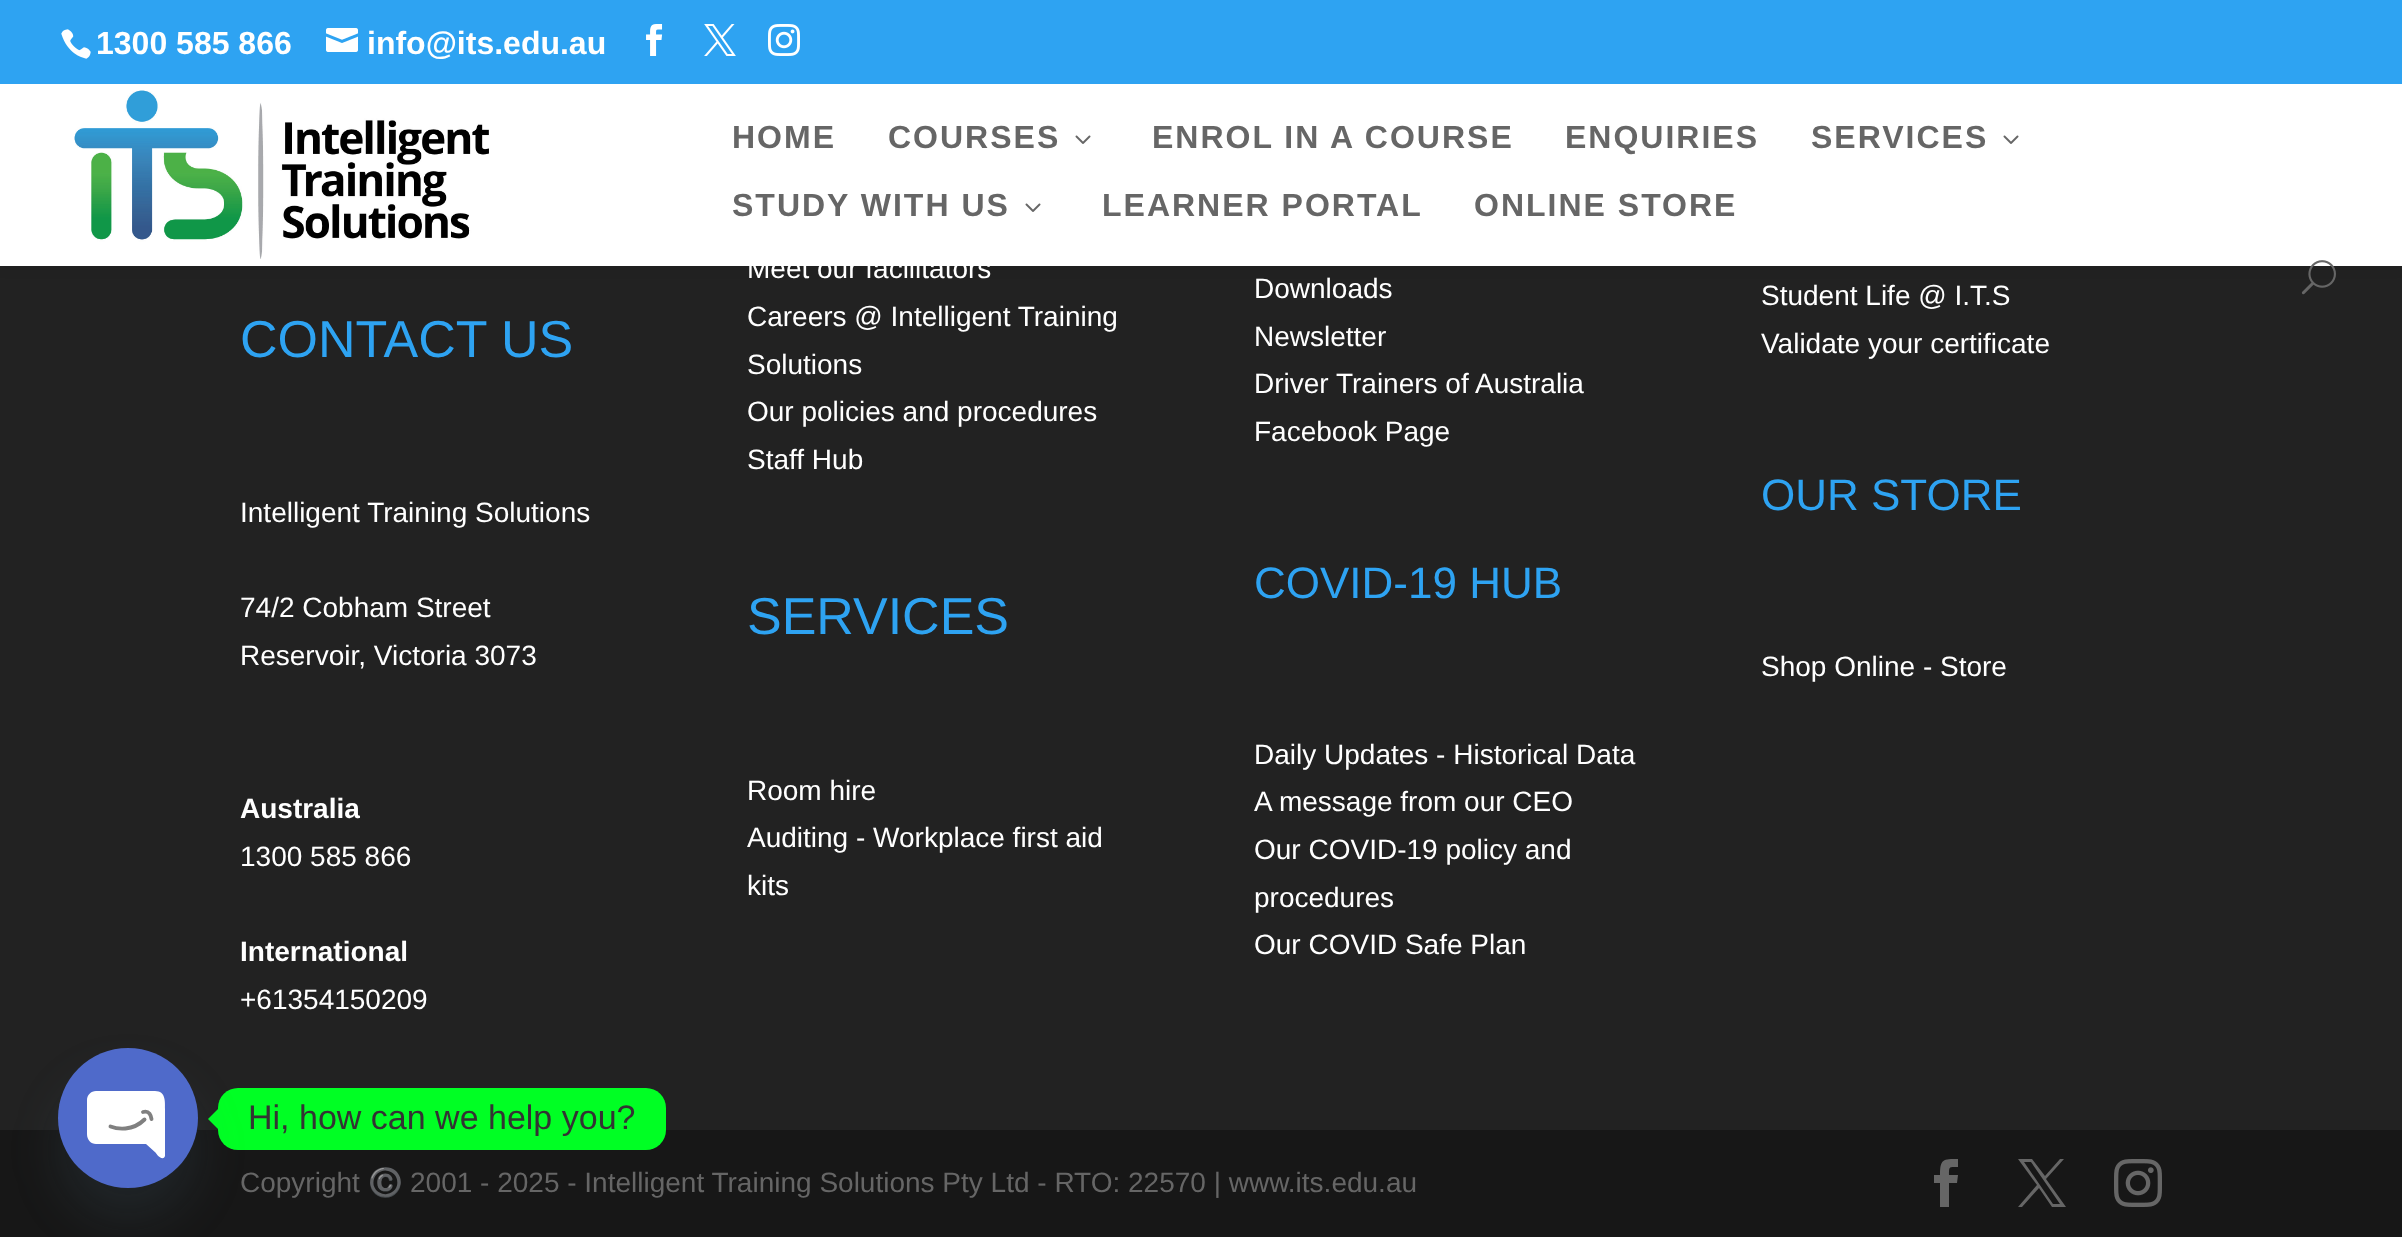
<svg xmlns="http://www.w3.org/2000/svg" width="2402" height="1237">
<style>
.a{font:bold 32px Liberation Sans;fill:#fff}
.b{font:bold 32px Liberation Sans;letter-spacing:2px;fill:#666}
.c{font:52px Liberation Sans;fill:#2ea3f2}
.d{font:28px Liberation Sans;fill:#fff}
.e{font:bold 28px Liberation Sans;fill:#fff}
.f{font:44px Liberation Sans;fill:#2ea3f2}
.g{font:28px Liberation Sans;fill:#666}
.h{font:28px Noto Color Emoji;fill:#666}
.i{font:34px Liberation Sans;fill:#333}
</style>
<rect width="100%" height="100%" fill="#222"/>
<path fill="#0000001a" filter="blur(7px)" d="M0 84h2402v182H0z"/>
<path fill="#2ea3f2" d="M0 0h2402v84H0z"/>
<image href="1.png" x="61" y="29" width="30" height="30"/>
<image href="2.png" x="326" y="28" width="32" height="24"/>
<image href="3.png" x="646" y="24" width="17" height="32"/>
<image href="4.png" x="704" y="24" width="32" height="32"/>
<image href="5.png" x="768" y="24" width="32" height="32"/>
<path fill="#fff" d="M0 84h2402v182H0z"/>
<image href="6.png" x="74" y="90" width="415" height="169"/>
<image href="7.png" x="1075" y="135" width="16" height="9"/>
<image href="7.png" x="2003" y="135" width="16" height="9"/>
<image href="7.png" x="1025" y="203" width="16" height="9"/>
<image href="8.png" x="2301" y="260" width="35" height="35"/>
<path fill="#171717" d="M0 1130h2402v107H0z"/>
<path fill="#666" d="M1940 1207h9v-24h8l1-8h-9c0-9 0-8 9-8v-8c-15 0-18 0-18 16h-6v8h6z"/>
<path fill="#666" d="M2018 1159l19 26l-19 22h4l17-19l13 19h14l-20-28l18-20h-4l-15 17l-13-17zm6 3h7l29 42h-7z"/>
<image href="9.png" x="2114" y="1159" width="48" height="48"/>
<rect fill="#00ff24" x="218" y="1088" width="448" height="62" rx="20"/>
<path fill="#00ff24" d="M218 1109v20l-10-10z"/>
<rect fill="#49687e29" filter="blur(24px)" x="58" y="1080" width="140" height="140" rx="70"/>
<circle fill="#4f6aca" cx="128" cy="1118" r="70"/>
<path fill="#fff" d="M155 1091h-59c-5 0-9 4-9 9v34c0 6 4 10 9 10h50l10 9c0 1 7 9 9 3v-47c0-7 1-18-10-18z"/>
<path fill="none" stroke="#808080" stroke-width="3.9" stroke-linecap="round" stroke-linejoin="round" d="M110.5 1126.5c6.5 2.5 22 5 34-7m7-.5c-.5-3-2-9-8.5-7"/>
<text class="a" x="96" y="54">1300 585 866</text>
<text class="a" x="367" y="54">info@its.edu.au</text>
<text class="b" x="732" y="148">HOME</text>
<text class="b" x="888" y="148">COURSES</text>
<text class="b" x="1152" y="148">ENROL IN A COURSE</text>
<text class="b" x="1565" y="148">ENQUIRIES</text>
<text class="b" x="1811" y="148">SERVICES</text>
<text class="b" x="732" y="216">STUDY WITH US</text>
<text class="b" x="1102" y="216">LEARNER PORTAL</text>
<text class="b" x="1474" y="216">ONLINE STORE</text>
<text class="c" x="240" y="357">CONTACT US</text>
<text class="d" x="240" y="522">Intelligent Training Solutions</text>
<text class="d" x="240" y="617">74/2 Cobham Street</text>
<text class="d" x="240" y="665">Reservoir, Victoria 3073</text>
<text class="e" x="240" y="818">Australia</text>
<text class="d" x="240" y="866">1300 585 866</text>
<text class="e" x="240" y="961">International</text>
<text class="d" x="240" y="1009">+61354150209</text>
<text class="d" x="747" y="278">Meet our facilitators</text>
<text class="d" x="747" y="326">Careers @ Intelligent Training</text>
<text class="d" x="747" y="374">Solutions</text>
<text class="d" x="747" y="421">Our policies and procedures</text>
<text class="d" x="747" y="469">Staff Hub</text>
<text class="c" x="747" y="634">SERVICES</text>
<text class="d" x="747" y="800">Room hire</text>
<text class="d" x="747" y="847">Auditing - Workplace first aid</text>
<text class="d" x="747" y="895">kits</text>
<text class="d" x="1254" y="298">Downloads</text>
<text class="d" x="1254" y="346">Newsletter</text>
<text class="d" x="1254" y="393">Driver Trainers of Australia</text>
<text class="d" x="1254" y="441">Facebook Page</text>
<text class="f" x="1254" y="598">COVID-19 HUB</text>
<text class="d" x="1254" y="764">Daily Updates - Historical Data</text>
<text class="d" x="1254" y="811">A message from our CEO</text>
<text class="d" x="1254" y="859">Our COVID-19 policy and</text>
<text class="d" x="1254" y="907">procedures</text>
<text class="d" x="1254" y="954">Our COVID Safe Plan</text>
<text class="d" x="1761" y="305">Student Life @ I.T.S</text>
<text class="d" x="1761" y="353">Validate your certificate</text>
<text class="f" x="1761" y="510">OUR STORE</text>
<text class="d" x="1761" y="676">Shop Online - Store</text>
<text class="g" x="240" y="1192">Copyright</text>
<text class="h" x="368" y="1192">©️</text>
<text class="g" x="410" y="1192">2001 - 2025 - Intelligent Training Solutions Pty Ltd - RTO: 22570 | www.its.edu.au</text>
<text class="i" x="248" y="1129">Hi, how can we help you?</text>
</svg>
